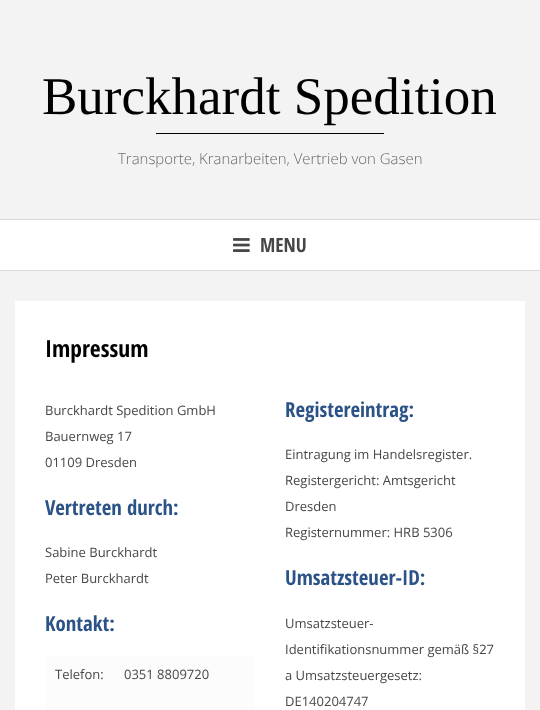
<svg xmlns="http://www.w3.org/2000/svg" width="540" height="710">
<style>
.a{font:53px Liberation Serif;fill:#000}
.b{font:300 14.95px Open Sans;fill:#686868}
.c{font:bold 19.5px Open Sans Condensed;fill:#474747}
.d{font:bold 23.5px Open Sans Condensed;fill:#000}
.e{font:13px Open Sans;fill:#474747}
.f{font:bold 20.75px Open Sans Condensed;fill:#2b5387}
</style>
<rect width="100%" height="100%" fill="#f3f3f3"/>
<path fill="#000" d="M156 133h228v1H156z"/>
<path fill="#fff" d="M0 220h540v50H0z"/>
<path fill="#d9d9d9" d="M0 219h540v1H0z"/>
<path fill="#d9d9d9" d="M0 270h540v1H0z"/>
<image href="1.png" x="233" y="238" width="17" height="14"/>
<path fill="#fff" d="M15 301h510v409H15z"/>
<path fill="#fcfcfc" d="M45 656h210v36H45z"/>
<path fill="#fcfcfc" d="M45 692h210v18H45z"/>
<text class="a" x="42" y="114">Burckhardt Spedition</text>
<text class="b" x="118" y="164">Transporte, Kranarbeiten, Vertrieb von Gasen</text>
<text class="c" x="260" y="252">MENU</text>
<text class="d" x="45" y="357">Impressum</text>
<text class="e" x="45" y="415">Burckhardt Spedition GmbH</text>
<text class="e" x="45" y="441">Bauernweg 17</text>
<text class="e" x="45" y="467">01109 Dresden</text>
<text class="f" x="45" y="515">Vertreten durch:</text>
<text class="e" x="45" y="557">Sabine Burckhardt</text>
<text class="e" x="45" y="583">Peter Burckhardt</text>
<text class="f" x="45" y="631">Kontakt:</text>
<text class="e" x="55" y="679">Telefon:</text>
<text class="e" x="124" y="679">0351 8809720</text>
<text class="f" x="285" y="417">Registereintrag:</text>
<text class="e" x="285" y="459">Eintragung im Handelsregister.</text>
<text class="e" x="285" y="485">Registergericht: Amtsgericht</text>
<text class="e" x="285" y="511">Dresden</text>
<text class="e" x="285" y="537">Registernummer: HRB 5306</text>
<text class="f" x="285" y="585">Umsatzsteuer-ID:</text>
<text class="e" x="285" y="628">Umsatzsteuer-</text>
<text class="e" x="285" y="654">Identifikationsnummer gemäß §27</text>
<text class="e" x="285" y="680">a Umsatzsteuergesetz:</text>
<text class="e" x="285" y="706">DE140204747</text>
</svg>
